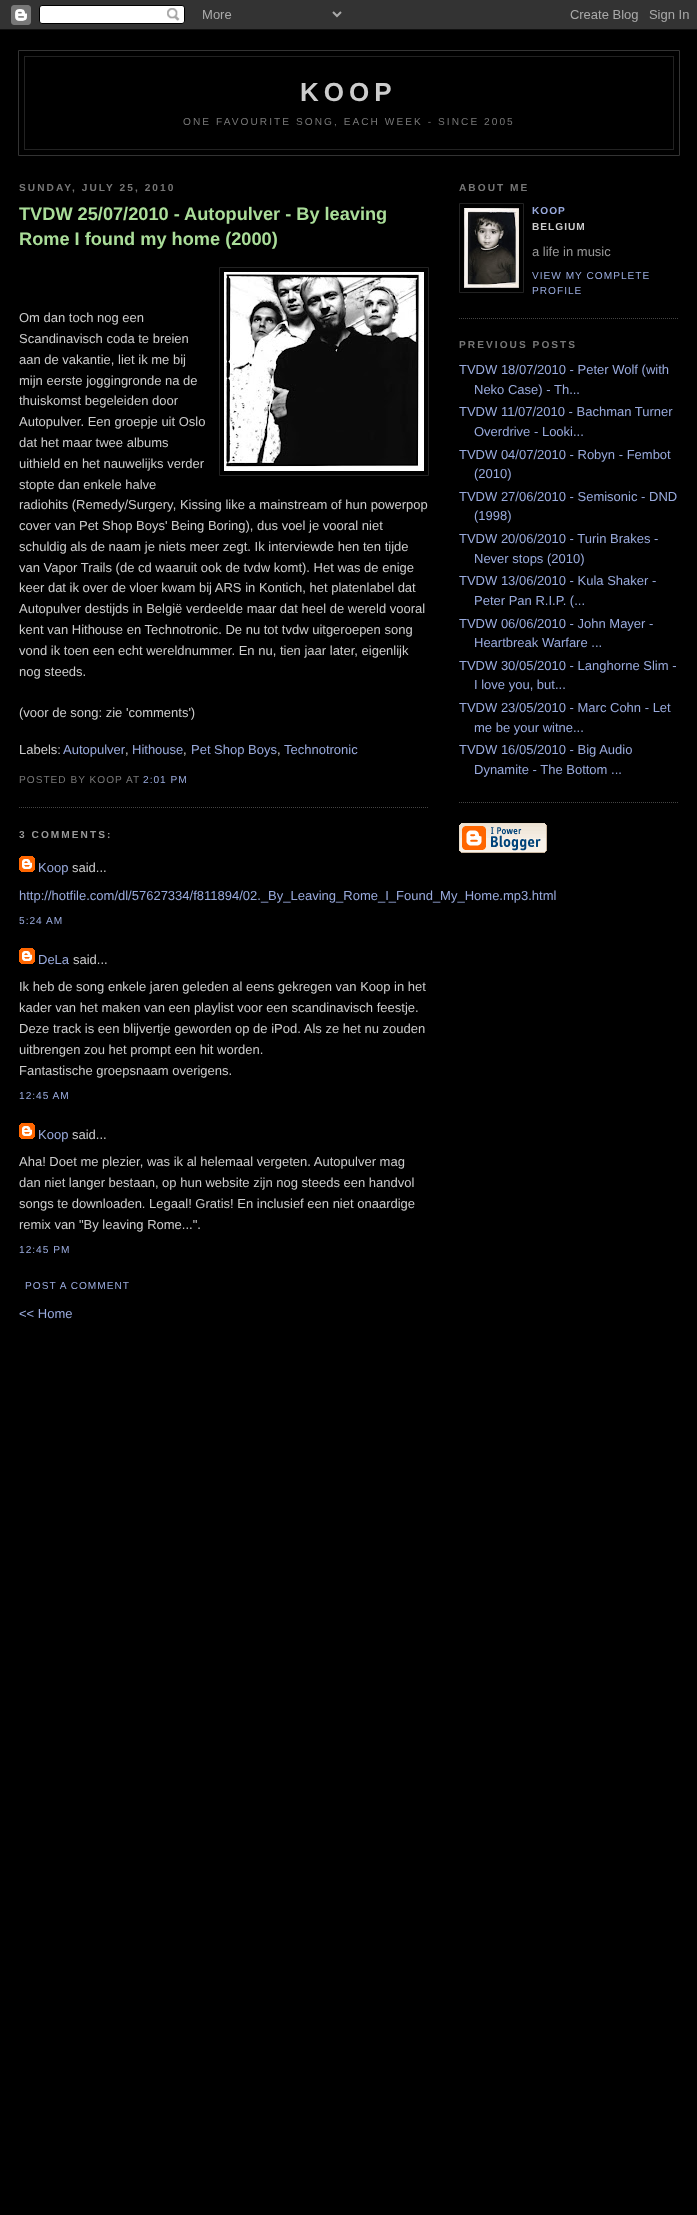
<svg xmlns="http://www.w3.org/2000/svg" width="697" height="2215">
<style>
.a{font:bold 26px Liberation Sans;letter-spacing:5px;fill:#ccc}
.b{font:10.15px Liberation Sans;letter-spacing:2.05px;fill:#777}
.c{font:bold 10.15px Liberation Sans;letter-spacing:2.05px;fill:#777}
.d{font:bold 18.2px Liberation Sans;fill:#ad9}
.e{font:13px Liberation Sans;fill:#ccc}
.f{font:13px Liberation Sans;fill:#9ad}
.g{font:10.15px Liberation Sans;letter-spacing:1px;fill:#777}
.h{font:10.15px Liberation Sans;letter-spacing:1px;fill:#9ad}
.i{font:bold 10.15px Liberation Sans;letter-spacing:2.05px;fill:#999}
.j{font:bold 10.15px Liberation Sans;letter-spacing:1px;fill:#9ad}
.k{font:bold 10.15px Liberation Sans;letter-spacing:1px;fill:#ccc}
.l{font:13px Liberation Sans;fill:#999}
</style>
<rect width="100%" height="100%" fill="#000"/>
<image href="1.png" x="0" y="0" width="697" height="30"/>
<path fill="none" stroke="#333" d="M18.5 50.5h661v105H18.5z"/>
<path fill="#222" d="M24 56h650v1H24z"/>
<path fill="#222" d="M673 56h1v94H673z"/>
<path fill="#222" d="M24 56h1v59H24z"/>
<path fill="#222" d="M24 149h650v1H24z"/>
<path fill="#222" d="M24 115h1v35H24z"/>
<path fill="none" stroke="#444" stroke-dasharray="1 1" d="M19 807.5h410"/>
<path fill="none" stroke="#222" d="M219.5 267.5h209v208H219.5z"/>
<image href="2.png" x="224" y="272" width="200" height="199"/>
<image href="3.png" x="19" y="856" width="16" height="16"/>
<image href="3.png" x="19" y="948" width="16" height="16"/>
<image href="3.png" x="19" y="1123" width="16" height="16"/>
<path fill="none" stroke="#444" stroke-dasharray="1 1" d="M459 318.5h220"/>
<path fill="none" stroke="#222" d="M459.5 203.5h64v89H459.5z"/>
<image href="4.png" x="464" y="208" width="55" height="80"/>
<path fill="none" stroke="#444" stroke-dasharray="1 1" d="M459 802.5h220"/>
<image href="5.png" x="459" y="823" width="88" height="30"/>
<text class="a" x="300" y="101">KOOP</text>
<text class="b" x="183" y="125">ONE FAVOURITE SONG, EACH WEEK - SINCE 2005</text>
<text class="c" x="19" y="191">SUNDAY, JULY 25, 2010</text>
<text class="d" x="19" y="220">TVDW 25/07/2010 - Autopulver - By leaving</text>
<text class="d" x="19" y="245">Rome I found my home (2000)</text>
<text class="e" x="19" y="322">Om dan toch nog een</text>
<text class="e" x="19" y="343">Scandinavisch coda te breien</text>
<text class="e" x="19" y="364">aan de vakantie, liet ik me bij</text>
<text class="e" x="19" y="385">mijn eerste joggingronde na de</text>
<text class="e" x="19" y="405">thuiskomst begeleiden door</text>
<text class="e" x="19" y="426">Autopulver. Een groepje uit Oslo</text>
<text class="e" x="19" y="447">dat het maar twee albums</text>
<text class="e" x="19" y="468">uithield en het nauwelijks verder</text>
<text class="e" x="19" y="489">stopte dan enkele halve</text>
<text class="e" x="19" y="509">radiohits (Remedy/Surgery, Kissing like a mainstream of hun powerpop</text>
<text class="e" x="19" y="530">cover van Pet Shop Boys' Being Boring), dus voel je vooral niet</text>
<text class="e" x="19" y="551">schuldig als de naam je niets meer zegt. Ik interviewde hen ten tijde</text>
<text class="e" x="19" y="572">van Vapor Trails (de cd waaruit ook de tvdw komt). Het was de enige</text>
<text class="e" x="19" y="592">keer dat ik over de vloer kwam bij ARS in Kontich, het platenlabel dat</text>
<text class="e" x="19" y="613">Autopulver destijds in België verdeelde maar dat heel de wereld vooral</text>
<text class="e" x="19" y="634">kent van Hithouse en Technotronic. De nu tot tvdw uitgeroepen song</text>
<text class="e" x="19" y="655">vond ik toen een echt wereldnummer. En nu, tien jaar later, eigenlijk</text>
<text class="e" x="19" y="676">nog steeds.</text>
<text class="e" x="19" y="717">(voor de song: zie 'comments')</text>
<text class="e" x="19" y="754">Labels:</text>
<text class="f" x="63" y="754">Autopulver</text>
<text class="e" x="125" y="754">,</text>
<text class="f" x="132" y="754">Hithouse</text>
<text class="e" x="183" y="754">,</text>
<text class="f" x="191" y="754">Pet Shop Boys</text>
<text class="e" x="277" y="754">,</text>
<text class="f" x="284" y="754">Technotronic</text>
<text class="g" x="19" y="783">POSTED BY KOOP AT</text>
<text class="h" x="143" y="783">2:01 PM</text>
<text class="i" x="19" y="838">3 COMMENTS:</text>
<text class="f" x="38" y="872">Koop</text>
<text class="e" x="72" y="872">said...</text>
<text class="f" x="19" y="900">http://hotfile.com/dl/57627334/f811894/02._By_Leaving_Rome_I_Found_My_Home.mp3.html</text>
<text class="h" x="19" y="924">5:24 AM</text>
<text class="f" x="38" y="964">DeLa</text>
<text class="e" x="73" y="964">said...</text>
<text class="e" x="19" y="991">Ik heb de song enkele jaren geleden al eens gekregen van Koop in het</text>
<text class="e" x="19" y="1012">kader van het maken van een playlist voor een scandinavisch feestje.</text>
<text class="e" x="19" y="1033">Deze track is een blijvertje geworden op de iPod. Als ze het nu zouden</text>
<text class="e" x="19" y="1054">uitbrengen zou het prompt een hit worden.</text>
<text class="e" x="19" y="1075">Fantastische groepsnaam overigens.</text>
<text class="h" x="19" y="1099">12:45 AM</text>
<text class="f" x="38" y="1139">Koop</text>
<text class="e" x="72" y="1139">said...</text>
<text class="e" x="19" y="1166">Aha! Doet me plezier, was ik al helemaal vergeten. Autopulver mag</text>
<text class="e" x="19" y="1187">dan niet langer bestaan, op hun website zijn nog steeds een handvol</text>
<text class="e" x="19" y="1208">songs te downloaden. Legaal! Gratis! En inclusief een niet onaardige</text>
<text class="e" x="19" y="1229">remix van "By leaving Rome...".</text>
<text class="h" x="19" y="1253">12:45 PM</text>
<text class="h" x="25" y="1289">POST A COMMENT</text>
<text class="f" x="19" y="1318">&lt;&lt; Home</text>
<text class="c" x="459" y="191">ABOUT ME</text>
<text class="j" x="532" y="214">KOOP</text>
<text class="k" x="532" y="230">BELGIUM</text>
<text class="l" x="532" y="256">a life in music</text>
<text class="h" x="532" y="279">VIEW MY COMPLETE</text>
<text class="h" x="532" y="294">PROFILE</text>
<text class="c" x="459" y="348">PREVIOUS POSTS</text>
<text class="f" x="459" y="374">TVDW 18/07/2010 - Peter Wolf (with</text>
<text class="f" x="474" y="394">Neko Case) - Th...</text>
<text class="f" x="459" y="416">TVDW 11/07/2010 - Bachman Turner</text>
<text class="f" x="474" y="436">Overdrive - Looki...</text>
<text class="f" x="459" y="459">TVDW 04/07/2010 - Robyn - Fembot</text>
<text class="f" x="474" y="478">(2010)</text>
<text class="f" x="459" y="501">TVDW 27/06/2010 - Semisonic - DND</text>
<text class="f" x="474" y="520">(1998)</text>
<text class="f" x="459" y="543">TVDW 20/06/2010 - Turin Brakes -</text>
<text class="f" x="474" y="563">Never stops (2010)</text>
<text class="f" x="459" y="585">TVDW 13/06/2010 - Kula Shaker -</text>
<text class="f" x="474" y="605">Peter Pan R.I.P. (...</text>
<text class="f" x="459" y="628">TVDW 06/06/2010 - John Mayer -</text>
<text class="f" x="474" y="647">Heartbreak Warfare ...</text>
<text class="f" x="459" y="670">TVDW 30/05/2010 - Langhorne Slim -</text>
<text class="f" x="474" y="689">I love you, but...</text>
<text class="f" x="459" y="712">TVDW 23/05/2010 - Marc Cohn - Let</text>
<text class="f" x="474" y="732">me be your witne...</text>
<text class="f" x="459" y="754">TVDW 16/05/2010 - Big Audio</text>
<text class="f" x="474" y="774">Dynamite - The Bottom ...</text>
</svg>
